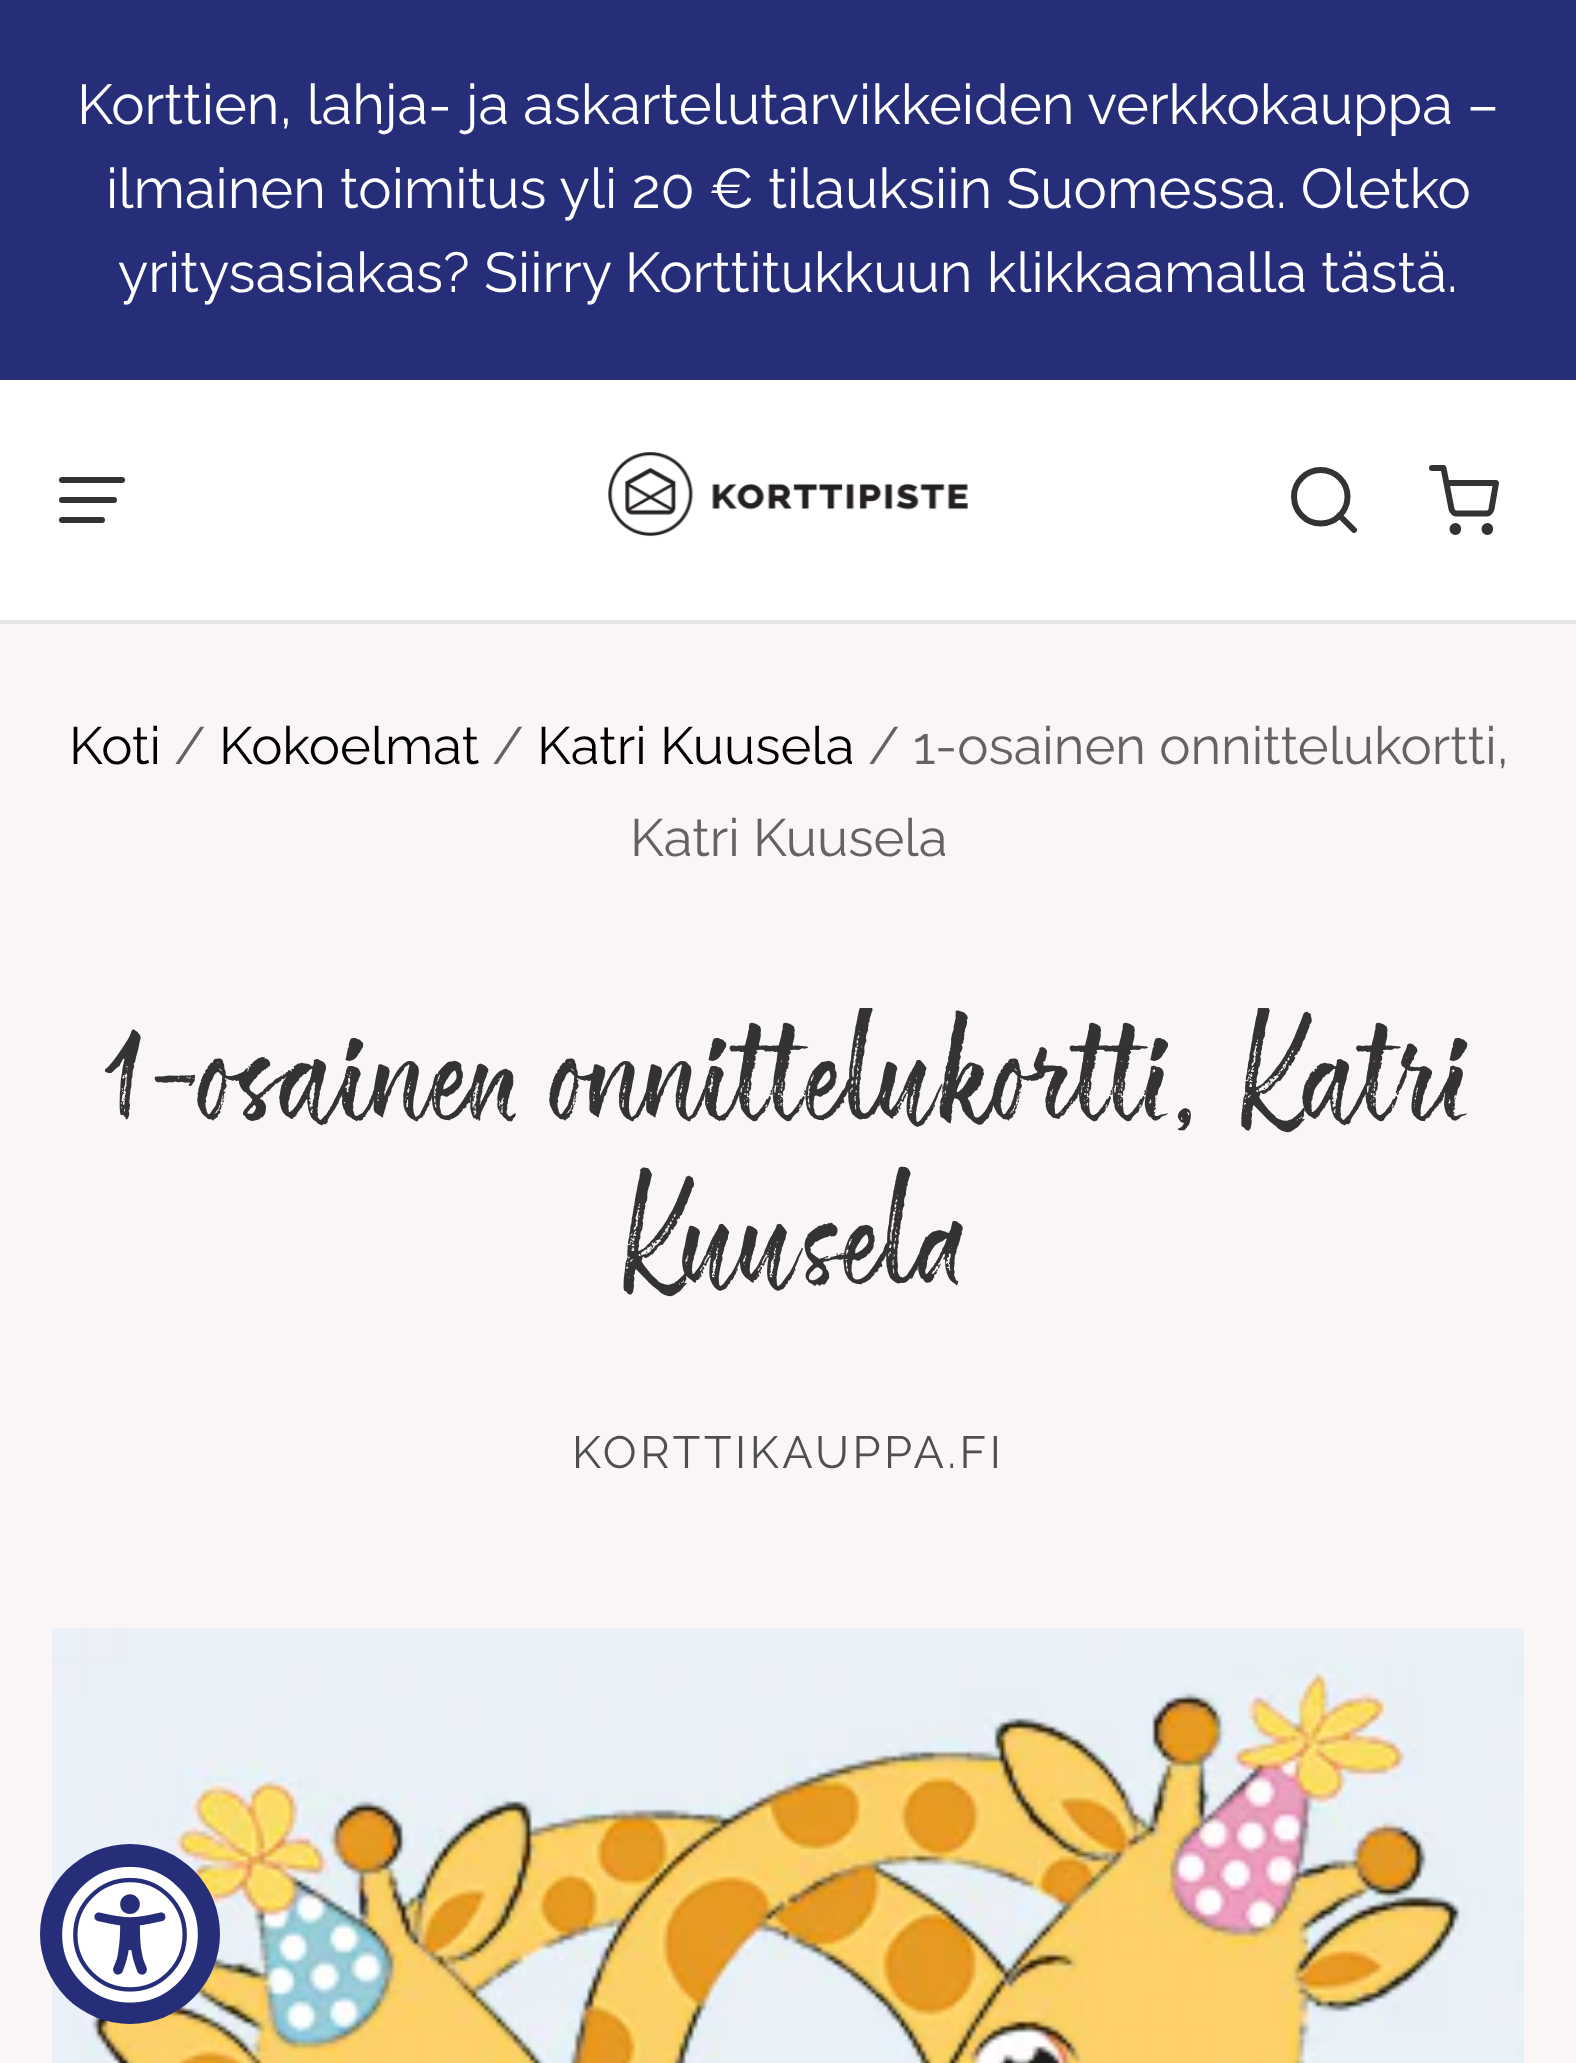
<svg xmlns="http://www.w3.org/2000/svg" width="1576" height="2063">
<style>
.a{font:56px Raleway;fill:#fff}
.b{font:52.5px Raleway;fill:#000}
.c{font:52.5px Raleway;fill:#646262}
.d{font:136.5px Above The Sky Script;fill:#333}
.e{font:45px Raleway;letter-spacing:3.6px;fill:#4f4f4f}
</style>
<defs>
<clipPath id="clip1"><path d="M52 1008h1472v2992H52z"/></clipPath>
</defs>
<rect width="100%" height="100%" fill="#f9f6f5"/>
<path fill="#262e79" d="M0 0h1576v380H0z"/>
<path fill="#fff" d="M0 380h1576v240H0z"/>
<path fill="#e5e5e5" d="M0 620h1576v4H0z"/>
<path fill="none" stroke="#333" stroke-width="6" stroke-linecap="round" stroke-linejoin="round" d="M62 480h60"/>
<path fill="none" stroke="#333" stroke-width="6" stroke-linecap="round" stroke-linejoin="round" d="M62 500h52m-52 20h40"/>
<image href="1.png" x="608" y="452" width="360" height="85"/>
<path fill="none" stroke="#333" stroke-width="6" stroke-linecap="round" stroke-linejoin="round" d="M1320.5 470c-14.5 0-26.5 12-26.5 26.5c0 15 12 27 26.5 27c15 0 27-12 27-27c0-14.5-12-26.5-27-26.5z"/>
<path fill="none" stroke="#333" stroke-width="6" stroke-linecap="round" stroke-linejoin="round" d="M1354 530l-14.5-14.5z"/>
<path fill="none" stroke="#333" stroke-width="6" stroke-linecap="round" stroke-linejoin="round" d="M1432 468h11.5l8 41c.5 2.5 3 5 6 4.5h28c3 .5 5.5-2 6-4.5l4.5-26h-49.5"/>
<path fill="none" stroke="#333" stroke-width="6" d="M1455.5 526c-4 0-4 6 0 6c3.5 0 3.5-6 0-6zm32 0c-4 0-4 6 0 6c3.5 0 3.5-6 0-6z"/>
<image href="2.png" x="52" y="1628" width="1472" height="435"/>
<circle fill="#262e79" cx="130" cy="1934" r="90"/>
<image href="3.png" x="62" y="1866" width="136" height="137"/>
<text class="a" x="77" y="124">Korttien, lahja- ja askartelutarvikkeiden verkkokauppa –</text>
<text class="a" x="106" y="208">ilmainen toimitus yli 20 € tilauksiin Suomessa. Oletko</text>
<text class="a" x="118" y="292">yritysasiakas? Siirry Korttitukkuun klikkaamalla tästä.</text>
<text class="b" x="69" y="764">Koti</text>
<text class="c" x="174" y="764">/</text>
<text class="b" x="219" y="764">Kokoelmat</text>
<text class="c" x="492" y="764">/</text>
<text class="b" x="537" y="764">Katri Kuusela</text>
<text class="c" x="868" y="764">/ 1-osainen onnittelukortti,</text>
<text class="c" x="630" y="856">Katri Kuusela</text>
<g clip-path="url(#clip1)">
<text class="d" x="100" y="1120">1-osainen onnittelukortti, Katri</text>
</g>
<text class="d" x="614" y="1284">Kuusela</text>
<text class="e" x="572" y="1468">KORTTIKAUPPA.FI</text>
</svg>
